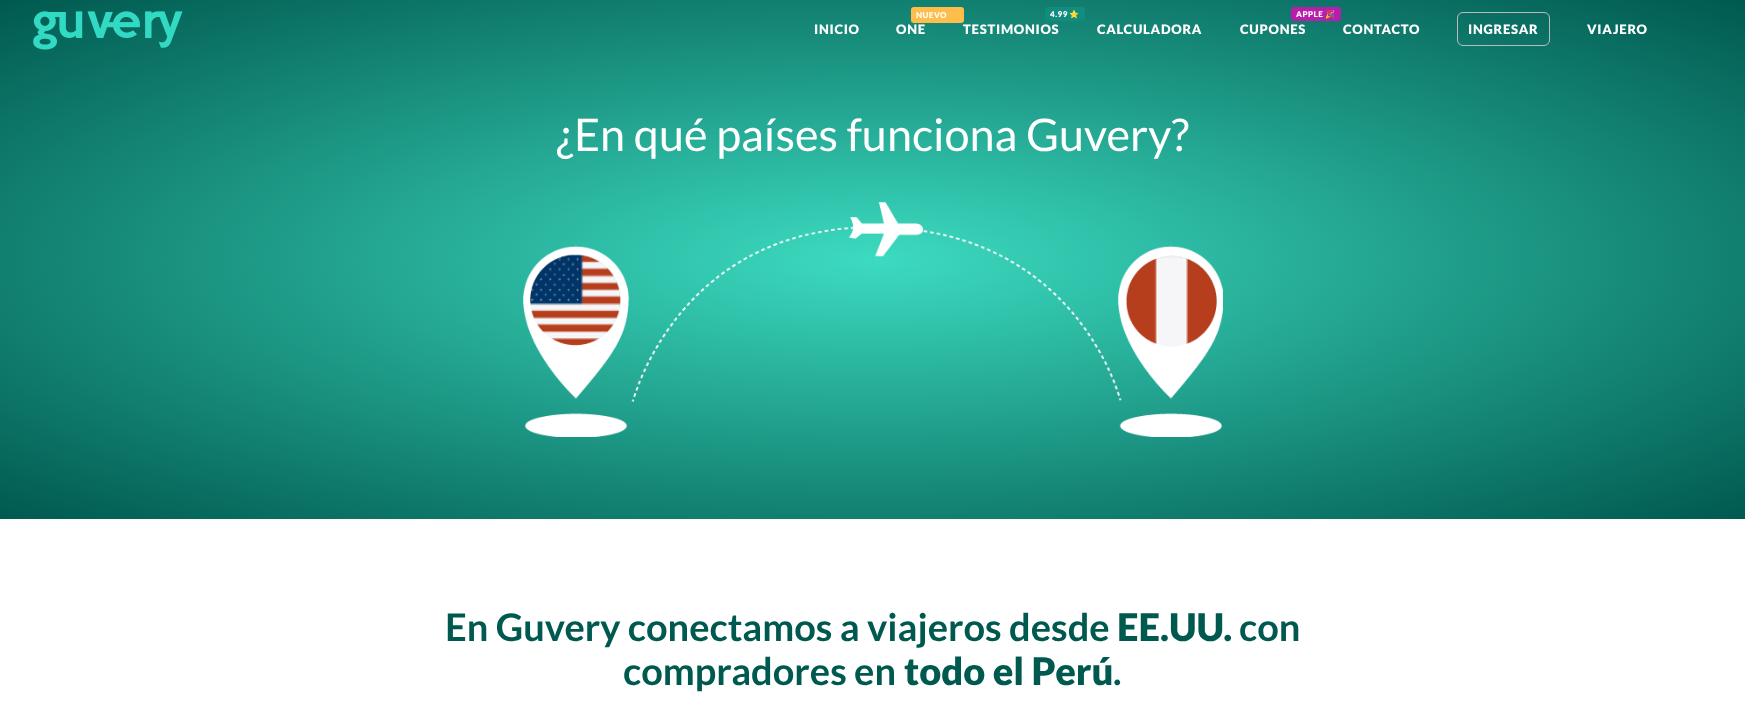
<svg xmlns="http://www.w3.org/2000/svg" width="1745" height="724">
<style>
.a{font:900 13px Lato;letter-spacing:0.75px;fill:#fff}
.b{font:900 8px Lato;letter-spacing:0.5px;fill:#fff}
.c{font:bold 8px Noto Color Emoji;letter-spacing:0.5px;fill:#fff}
.d{font:45px Lato;fill:#fff}
.e{font:bold 38px Lato;fill:#00594f}
.f{font:900 38px Lato;fill:#00594f}
</style>
<defs>
<radialGradient id="g1" gradientUnits="userSpaceOnUse" cx="0" cy="0" r="1" gradientTransform="matrix(1234 0 0 367 873 260)"><stop offset="0" stop-color="#3cdbc0"/><stop offset="1" stop-color="#00594f"/></radialGradient>
</defs>
<rect width="100%" height="100%" fill="#fff"/>
<path fill="url(#g1)" d="M0 0h1745v519H0z"/>
<image href="1.png" x="33" y="11" width="150" height="39"/>
<rect fill="#ffbe4b" x="911" y="7" width="53" height="16" rx="3"/>
<rect fill="#128c7e" x="1045" y="7" width="40" height="14" rx="3"/>
<rect fill="#b71faa" x="1291" y="7" width="50" height="14" rx="3"/>
<rect fill="none" stroke="#bbb" x="1457.5" y="12.5" width="92" height="33" rx="5.5"/>
<image href="2.png" x="523" y="202" width="700" height="235"/>
<text class="a" x="814" y="34">INICIO</text>
<text class="b" x="916" y="18">NUEVO</text>
<text class="a" x="896" y="34">ONE</text>
<text class="b" x="1050" y="17">4.99</text>
<text class="c" x="1069" y="17">⭐️</text>
<text class="a" x="963" y="34">TESTIMONIOS</text>
<text class="a" x="1097" y="34">CALCULADORA</text>
<text class="b" x="1296" y="17">APPLE</text>
<text class="c" x="1325" y="17">🎉</text>
<text class="a" x="1240" y="34">CUPONES</text>
<text class="a" x="1343" y="34">CONTACTO</text>
<text class="a" x="1468" y="34">INGRESAR</text>
<text class="a" x="1587" y="34">VIAJERO</text>
<text class="d" x="556" y="151">¿En qué países funciona Guvery?</text>
<text class="e" x="445" y="641">En Guvery conectamos a viajeros desde</text>
<text class="f" x="1117" y="641">EE.UU.</text>
<text class="e" x="1239" y="641">con</text>
<text class="e" x="623" y="685">compradores en</text>
<text class="f" x="904" y="685">todo el Perú</text>
<text class="e" x="1113" y="685">.</text>
</svg>
